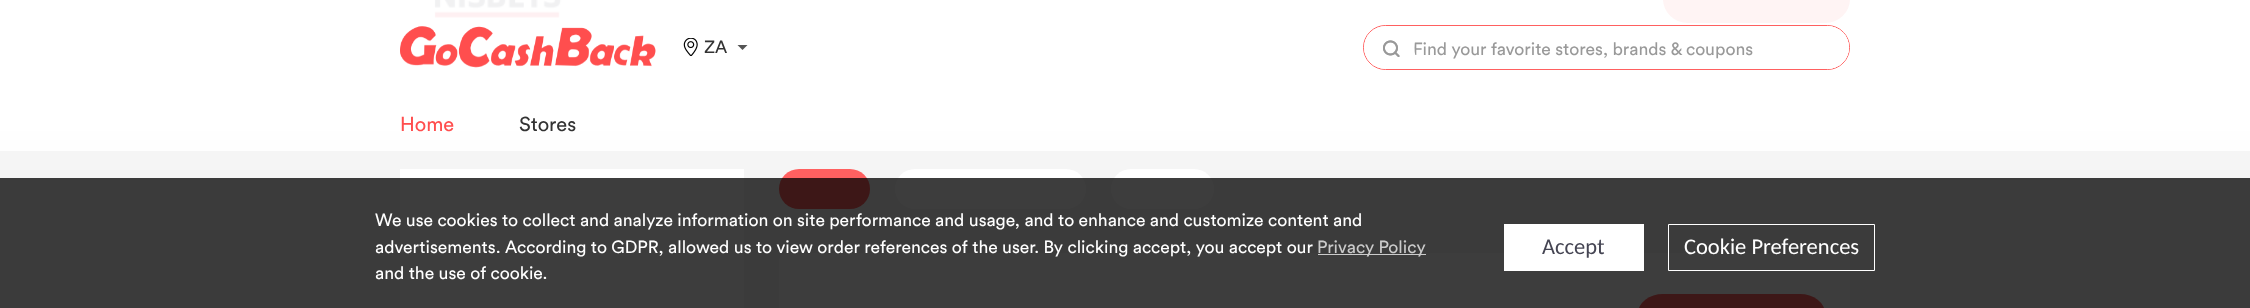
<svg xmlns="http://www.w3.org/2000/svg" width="2250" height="308">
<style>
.a{font:17.5px Circular;fill:#333}
.b{font:17.5px Circular;fill:#999}
.c{font:20px Circular;fill:#ff4e4e}
.d{font:20px Circular;fill:#333}
.e{font:17.5px Circular;fill:#fff}
.f{font:17.5px Circular;fill:#cbcbcb}
.g{font:22.5px Carlito;fill:#454553}
.h{font:22.5px Carlito;fill:#fff}
</style>
<defs>
<clipPath id="clip1"><rect x="1414" y="26" width="435" height="43" rx="21.5"/></clipPath>
</defs>
<rect width="100%" height="100%" fill="#f5f5f5"/>
<path fill="#fefefe" d="M0 131h2250v20H0z"/>
<path fill="#fff" d="M0 0h2250v131H0z"/>
<image href="1.png" x="434" y="0" width="128" height="18"/>
<rect fill="#fff4f4" x="1663" y="-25" width="187" height="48" rx="25"/>
<path fill="#fff" d="M400 169h344v139H400z"/>
<rect fill="#ff6060" x="779" y="169" width="91" height="40" rx="20"/>
<rect fill="#fff" x="895" y="169" width="191" height="40" rx="20"/>
<rect fill="#fff" x="1111" y="169" width="103" height="40" rx="20"/>
<rect fill="#fff" x="779" y="253" width="1071" height="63" rx="8"/>
<rect fill="#ff6060" x="1638" y="294" width="187" height="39" rx="25"/>
<image href="2.png" x="400" y="26" width="256" height="42"/>
<image href="3.png" x="683" y="38" width="15" height="18"/>
<path fill="#555" d="M737.5 45h10l-5 5z"/>
<rect fill="none" stroke="#ff6060" x="1363.5" y="25.5" width="486" height="44" rx="22"/>
<rect fill="#fff" x="1364" y="26" width="485" height="43" rx="21.5"/>
<image href="4.png" x="1383" y="40" width="17" height="17"/>
<rect fill="#fff" x="1414" y="26" width="435" height="43" rx="21.5"/>
<path fill="#000000c2" d="M0 178h2250v130H0z"/>
<path fill="#cbcbcb" d="M1318 254h108v1H1318z"/>
<path fill="#fff" d="M1504 224h140v47H1504z"/>
<path fill="none" stroke="#fff" d="M1668.5 224.5h206v46H1668.5z"/>
<text class="a" x="704" y="53">ZA</text>
<g clip-path="url(#clip1)">
<text class="b" x="1413" y="55">Find your favorite stores, brands &amp; coupons</text>
</g>
<text class="c" x="400" y="131">Home</text>
<text class="d" x="519" y="131">Stores</text>
<text class="e" x="375" y="226">We use cookies to collect and analyze information on site performance and usage, and to enhance and customize content and</text>
<text class="e" x="375" y="253">advertisements. According to GDPR, allowed us to view order references of the user. By clicking accept, you accept our</text>
<text class="f" x="1317" y="253">Privacy Policy</text>
<text class="e" x="375" y="279">and the use of cookie.</text>
<text class="g" x="1542" y="254">Accept</text>
<text class="h" x="1684" y="254">Cookie Preferences</text>
</svg>
